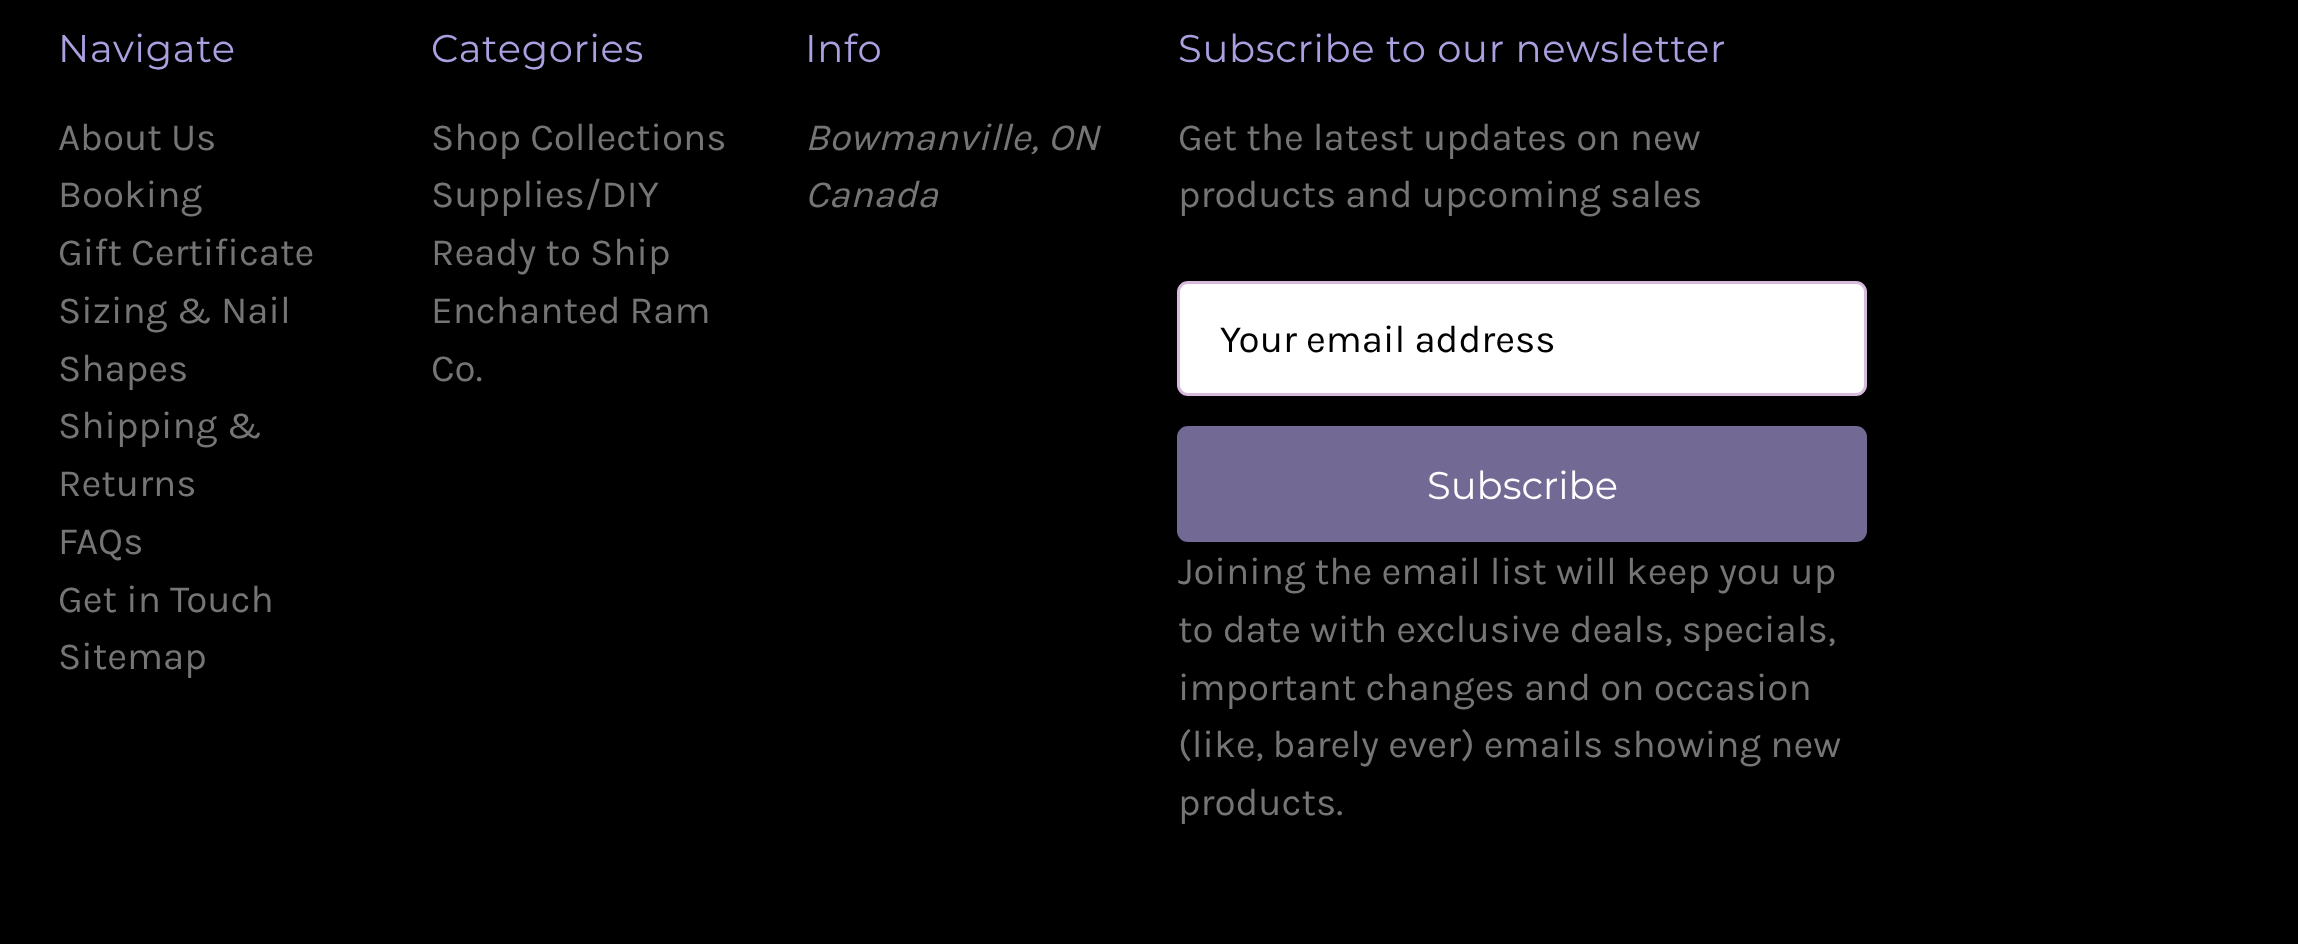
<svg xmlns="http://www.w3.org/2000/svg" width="2298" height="944">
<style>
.a{font:100 38.5px Montserrat;letter-spacing:0.7px;fill:#ab9fdf}
.b{font:38.5px Karla;fill:#757575}
.c{font:italic 38.5px Karla;fill:#757575}
.d{font:38.5px Karla;fill:#000}
.e{font:100 38.5px Montserrat;fill:#fff}
</style>
<rect width="100%" height="100%" fill="#000"/>
<rect fill="#fff" stroke="#d9badf" stroke-width="3" x="1178.5" y="282.5" width="687" height="112" rx="9.5"/>
<rect fill="#726a95" stroke="#726a95" stroke-width="3" x="1178.5" y="427.5" width="687" height="113" rx="9.5"/>
<text class="a" x="58" y="62">Navigate</text>
<text class="b" x="58" y="150">About Us</text>
<text class="b" x="58" y="207">Booking</text>
<text class="b" x="58" y="265">Gift Certificate</text>
<text class="b" x="58" y="323">Sizing &amp; Nail</text>
<text class="b" x="58" y="381">Shapes</text>
<text class="b" x="58" y="438">Shipping &amp;</text>
<text class="b" x="58" y="496">Returns</text>
<text class="b" x="58" y="554">FAQs</text>
<text class="b" x="58" y="612">Get in Touch</text>
<text class="b" x="58" y="669">Sitemap</text>
<text class="a" x="431" y="62">Categories</text>
<text class="b" x="431" y="150">Shop Collections</text>
<text class="b" x="431" y="207">Supplies/DIY</text>
<text class="b" x="431" y="265">Ready to Ship</text>
<text class="b" x="431" y="323">Enchanted Ram</text>
<text class="b" x="431" y="381">Co.</text>
<text class="a" x="805" y="62">Info</text>
<text class="c" x="805" y="150">Bowmanville, ON</text>
<text class="c" x="805" y="207">Canada</text>
<text class="a" x="1178" y="62">Subscribe to our newsletter</text>
<text class="b" x="1178" y="150">Get the latest updates on new</text>
<text class="b" x="1178" y="207">products and upcoming sales</text>
<text class="d" x="1220" y="352">Your email address</text>
<text class="e" x="1427" y="499">Subscribe</text>
<text class="b" x="1178" y="584">Joining the email list will keep you up</text>
<text class="b" x="1178" y="642">to date with exclusive deals, specials,</text>
<text class="b" x="1178" y="700">important changes and on occasion</text>
<text class="b" x="1178" y="757">(like, barely ever) emails showing new</text>
<text class="b" x="1178" y="815">products.</text>
</svg>
